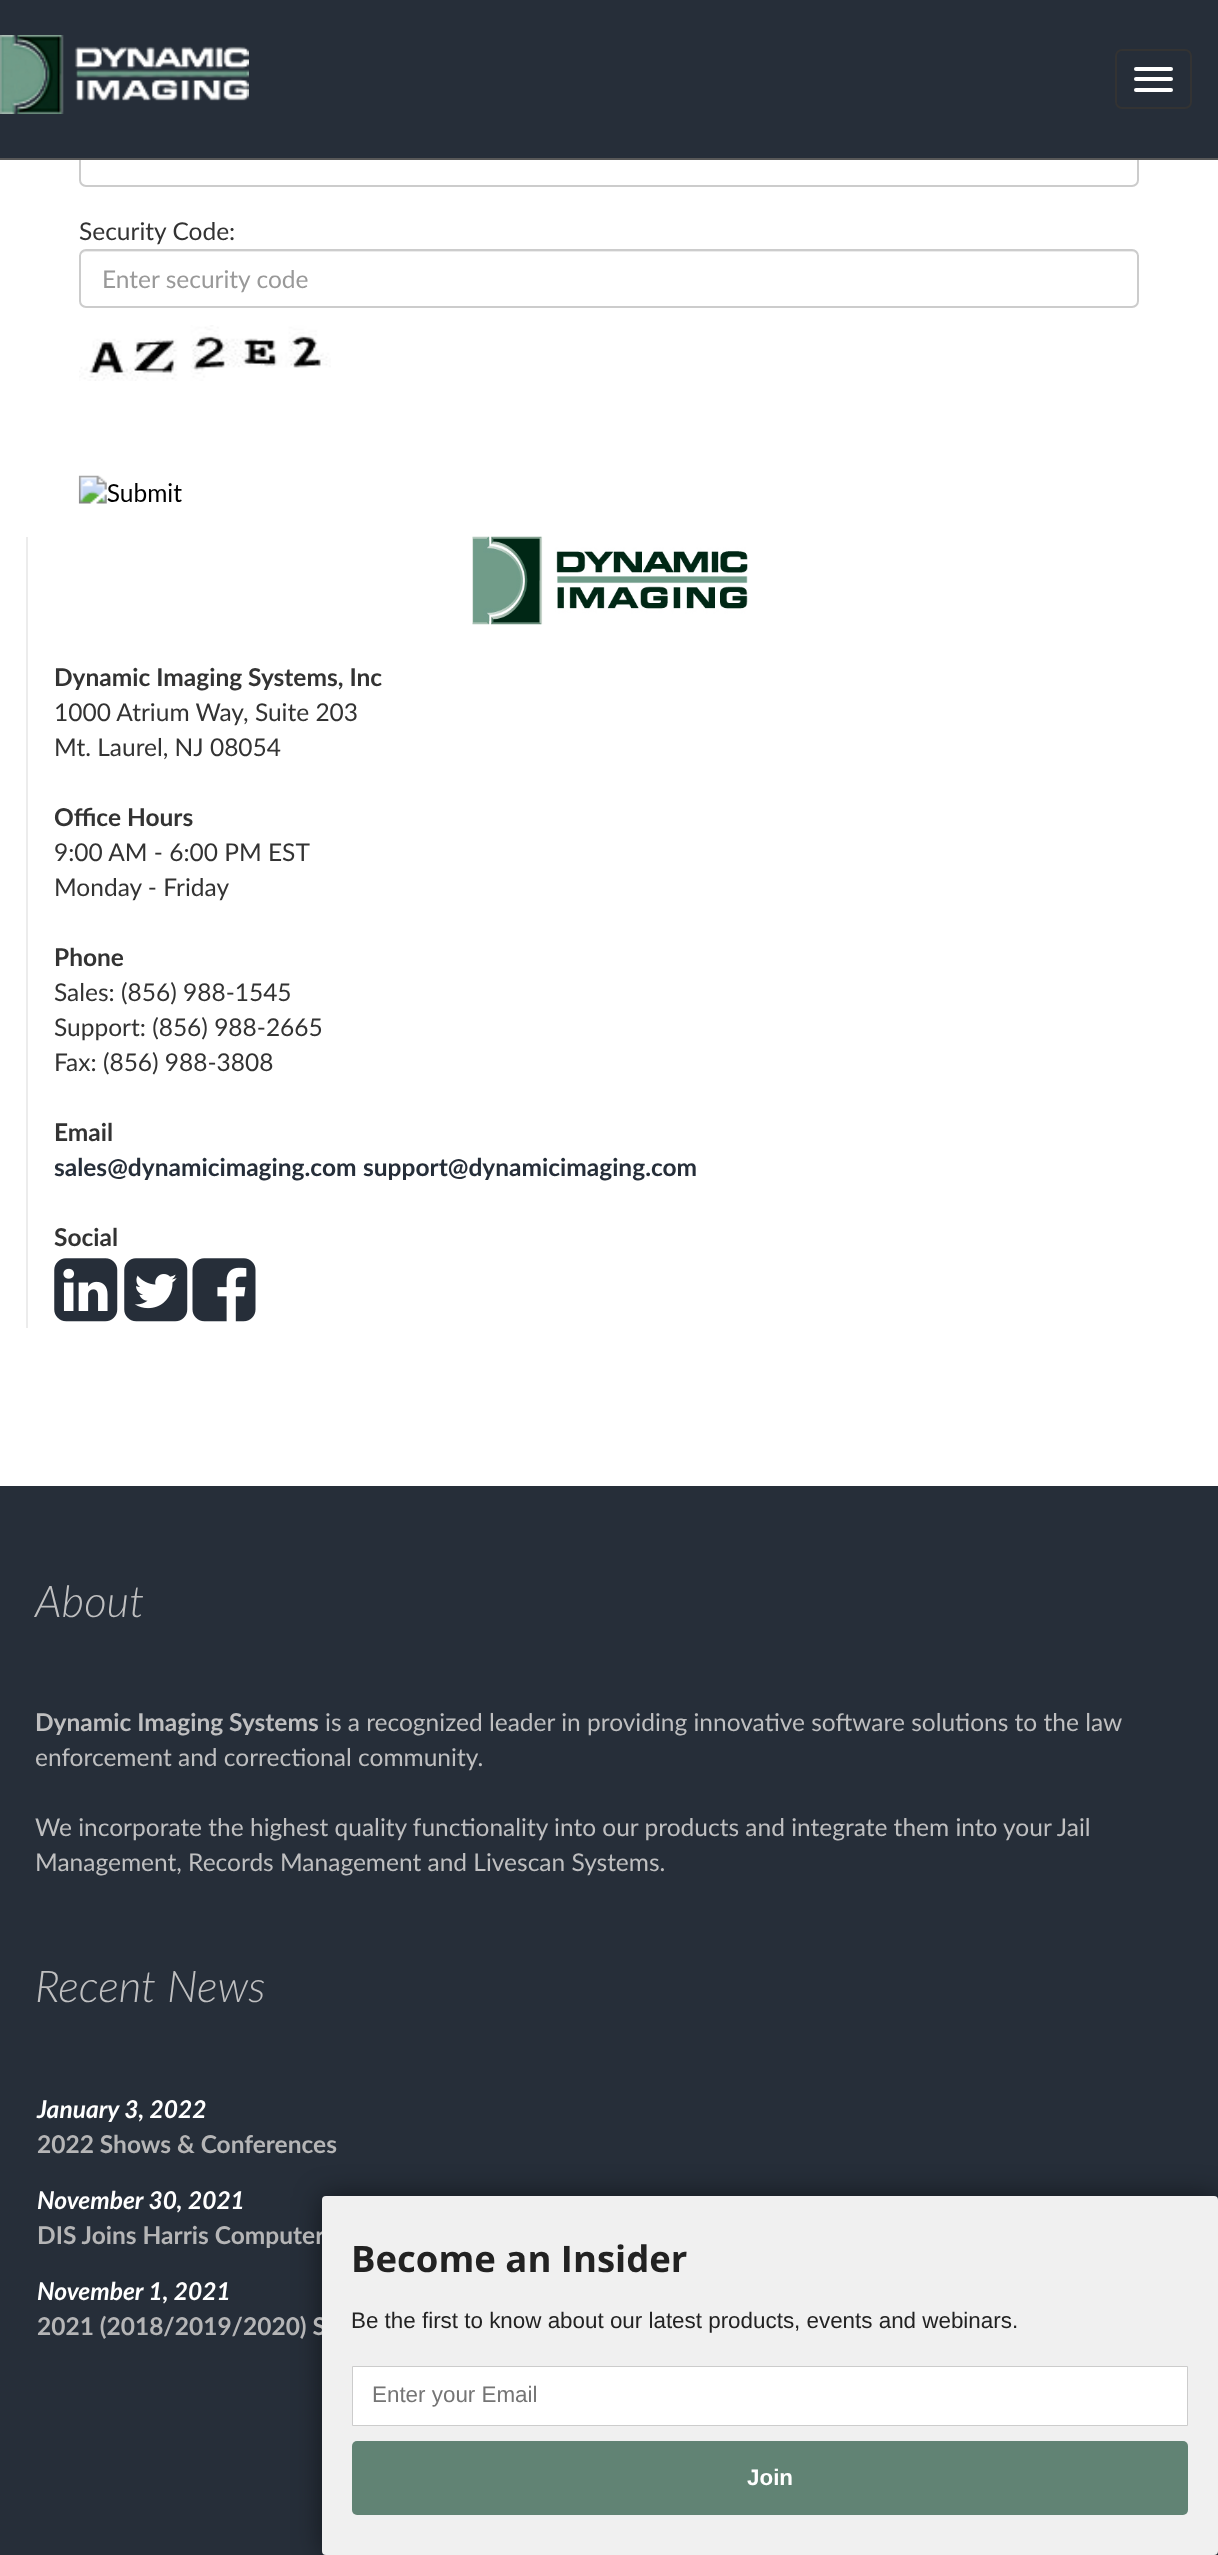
<svg xmlns="http://www.w3.org/2000/svg" width="1218" height="2555">
<style>
.a{font:24.5px Lato;fill:#333}
.b{font:24.5px Lato;fill:#999}
.c{font:bold 24.5px Lato;fill:#333}
.d{font:bold 24.5px Lato;fill:#262e39}
.e{font:italic 300 43.75px Lato;fill:#bfbfc0}
.f{font:bold 24.5px Lato;fill:#bfbfc0}
.g{font:24.5px Lato;fill:#bfbfc0}
.h{font:italic bold 24.5px Lato;fill:#fff}
.i{font:bold 24.5px Lato;fill:#b5b5b6}
.j{font:bold 36.5px Open Sans;fill:#222}
.k{font:22.4px Liberation Sans;fill:#222}
.l{font:22.4px Liberation Sans;fill:#757575}
.m{font:bold 22.4px Liberation Sans;fill:#fff}
</style>
<rect width="100%" height="100%" fill="#fff"/>
<rect fill="none" stroke="#ccc" stroke-width="2" x="80" y="-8" width="1058" height="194" rx="6"/>
<path fill="#262e39" d="M0 0h1218v158H0z"/>
<path fill="#585858" d="M0 158h1218v2H0z"/>
<image href="1.png" x="0" y="35" width="249" height="79"/>
<rect fill="none" stroke="#333" stroke-width="2" x="1116" y="50" width="75" height="58" rx="6"/>
<rect fill="#fff" x="1134" y="67" width="39" height="4" rx="2"/>
<rect fill="#fff" x="1134" y="77" width="39" height="4" rx="2"/>
<rect fill="#fff" x="1134" y="88" width="39" height="4" rx="2"/>
<path fill="#ececec" d="M86 252h1046c3 0 6 2 6 5v-2c0-3-2-5-5-5h-1047c-2 0-5 2-5 4c1-1 3-2 5-2z"/>
<rect fill="none" stroke="#ccc" stroke-width="2" x="80" y="250" width="1058" height="57" rx="6"/>
<image href="2.png" x="79" y="325" width="252" height="56"/>
<image href="3.png" x="78" y="475" width="104" height="29"/>
<path fill="#ececec" d="M26 537h2v791H26z"/>
<image href="4.png" x="472" y="536" width="276" height="89"/>
<image href="5.png" x="54" y="1258" width="64" height="64"/>
<image href="6.png" x="124" y="1258" width="64" height="64"/>
<image href="7.png" x="192" y="1258" width="64" height="64"/>
<path fill="#262e39" d="M0 1486h1218v1069H0z"/>
<rect fill="#00000080" filter="blur(14px)" x="322" y="2196" width="896" height="359" rx="4"/>
<text class="a" x="79" y="240">Security Code:</text>
<text class="b" x="102" y="288">Enter security code</text>
<text class="c" x="54" y="686">Dynamic Imaging Systems, Inc</text>
<text class="a" x="54" y="721">1000 Atrium Way, Suite 203</text>
<text class="a" x="54" y="756">Mt. Laurel, NJ 08054</text>
<text class="c" x="54" y="826">Office Hours</text>
<text class="a" x="54" y="861">9:00 AM - 6:00 PM EST</text>
<text class="a" x="54" y="896">Monday - Friday</text>
<text class="c" x="54" y="966">Phone</text>
<text class="a" x="54" y="1001">Sales: (856) 988-1545</text>
<text class="a" x="54" y="1036">Support: (856) 988-2665</text>
<text class="a" x="54" y="1071">Fax: (856) 988-3808</text>
<text class="c" x="54" y="1141">Email</text>
<text class="d" x="54" y="1176">sales@dynamicimaging.com</text>
<text class="d" x="363" y="1176">support@dynamicimaging.com</text>
<text class="c" x="54" y="1246">Social</text>
<text class="e" x="35" y="1617">About</text>
<text class="f" x="35" y="1731">Dynamic Imaging Systems</text>
<text class="g" x="325" y="1731">is a recognized leader in providing innovative software solutions to the law</text>
<text class="g" x="35" y="1766">enforcement and correctional community.</text>
<text class="g" x="35" y="1836">We incorporate the highest quality functionality into our products and integrate them into your Jail</text>
<text class="g" x="35" y="1871">Management, Records Management and Livescan Systems.</text>
<text class="e" x="35" y="2002">Recent News</text>
<text class="h" x="37" y="2118">January 3, 2022</text>
<text class="i" x="37" y="2153">2022 Shows &amp; Conferences</text>
<text class="h" x="37" y="2209">November 30, 2021</text>
<text class="i" x="37" y="2244">DIS Joins Harris Computer</text>
<text class="h" x="37" y="2300">November 1, 2021</text>
<text class="i" x="37" y="2335">2021 (2018/2019/2020) S</text>
<rect fill="#f0f0f0" x="322" y="2196" width="896" height="359" rx="4"/>
<text class="j" x="351" y="2272">Become an Insider</text>
<text class="k" x="351" y="2328">Be the first to know about our latest products, events and webinars.</text>
<path fill="#fff" stroke="#ccc" d="M352.5 2366.5h835v59H352.5z"/>
<text class="l" x="372" y="2402">Enter your Email</text>
<rect fill="#618374" x="352" y="2441" width="836" height="74" rx="5"/>
<text class="m" x="747" y="2485">Join</text>
</svg>
